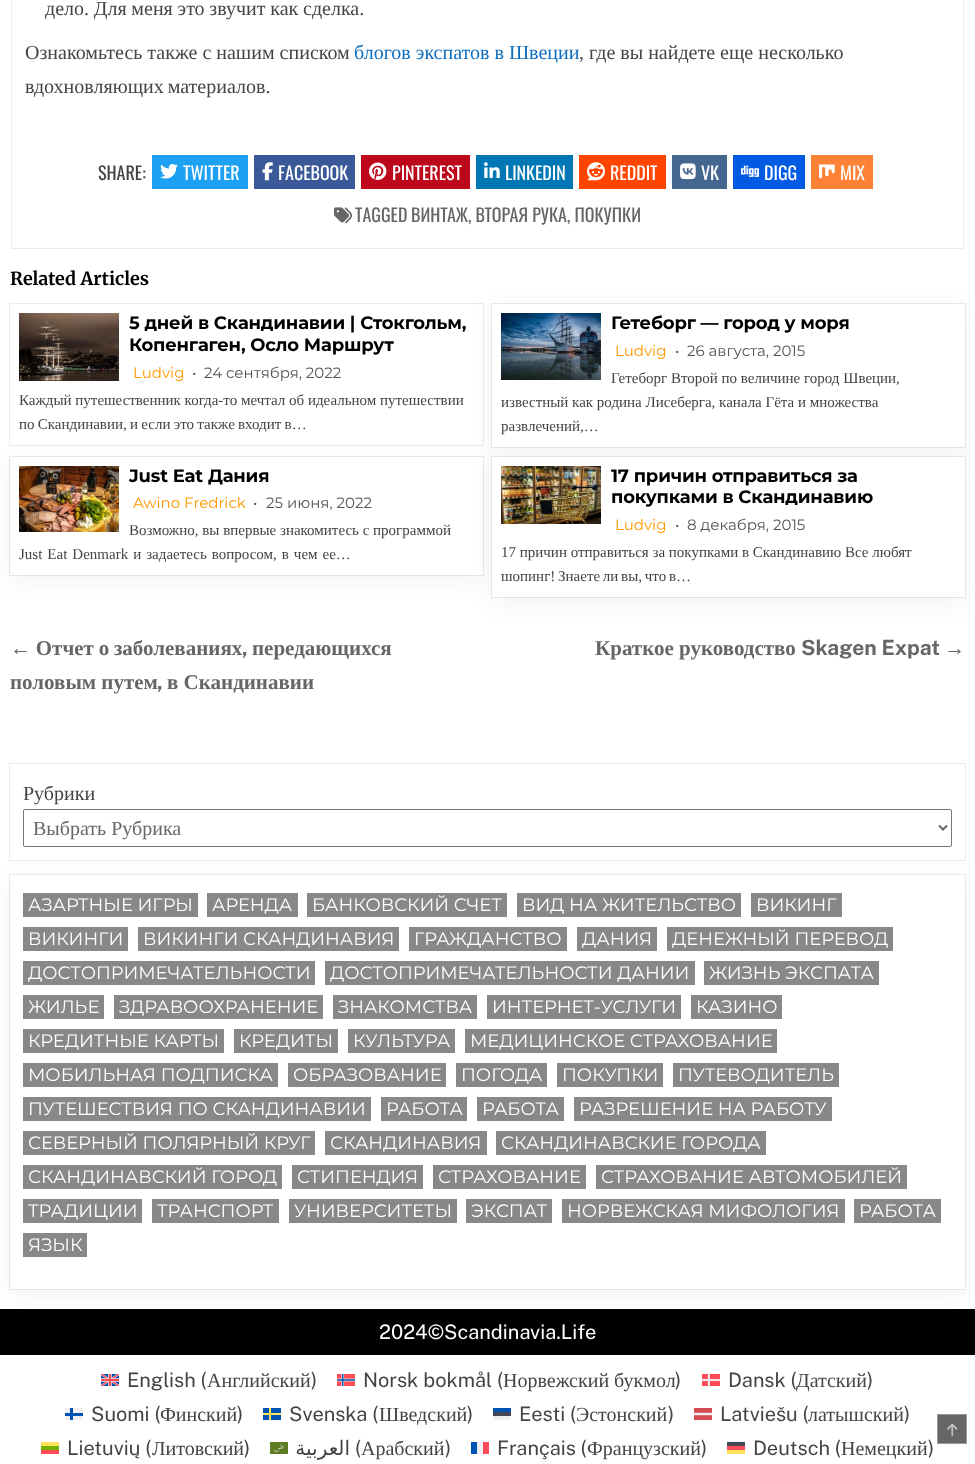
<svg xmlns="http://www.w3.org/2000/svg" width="975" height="1464">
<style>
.a{font:20px Liberation Serif;fill:#444}
.b{font:20px Liberation Serif;fill:#0f6dbf}
.c{font:18px Oswald;fill:#444}
.d{font:18px Oswald;fill:#fff}
.e{font:18px Oswald;fill:#666}
.f{font:bold 18px Merriweather;fill:#000}
.g{font:bold 18px Montserrat;letter-spacing:-0.2px;fill:#000}
.h{font:15px Montserrat;fill:#ff9800}
.i{font:15px Montserrat;fill:#555}
.j{font:15px Liberation Serif;fill:#444}
.k{font:bold 21px Liberation Serif;fill:#666}
.l{font:bold 21px Public Sans;fill:#666}
.m{font:20px Liberation Serif;fill:#666}
.n{font:18px Montserrat;fill:#fff}
.o{font:20px Public Sans;fill:#fff}
.p{font:20px Public Sans;fill:#444}
.q{font:20px DejaVu Sans;direction:rtl;fill:#444}
</style>
<rect width="100%" height="100%" fill="#fff"/>
<path fill="none" stroke="#ebebeb" d="M11.5 -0.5h952v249H11.5z"/>
<path fill="#1da1f2" d="M152 155h96v34H152z"/>
<image href="1.png" x="160" y="164" width="18" height="15"/>
<path fill="#3b5998" d="M254 155h101v34H254z"/>
<image href="2.png" x="262" y="162" width="11" height="19"/>
<path fill="#bd081c" d="M361 155h109v34H361z"/>
<image href="3.png" x="369" y="162" width="18" height="18"/>
<path fill="#0077b5" d="M476 155h97v34H476z"/>
<image href="4.png" x="484" y="162" width="16" height="16"/>
<path fill="#ff4500" d="M579 155h87v34H579z"/>
<image href="5.png" x="587" y="162" width="18" height="19"/>
<path fill="#45668e" d="M672 155h55v34H672z"/>
<image href="6.png" x="680" y="163" width="16" height="17"/>
<path fill="#005be2" d="M733 155h72v34H733z"/>
<image href="7.png" x="741" y="165" width="18" height="12"/>
<path fill="#fd8235" d="M811 155h62v34H811z"/>
<image href="8.png" x="819" y="164" width="16" height="15"/>
<image href="9.png" x="334" y="207" width="18" height="17"/>
<path fill="none" stroke="#ebebeb" d="M9.5 303.5h474v142H9.5z"/>
<image href="10.png" x="19" y="313" width="100" height="68"/>
<path fill="none" stroke="#00000014" d="M491.5 303.5h474v144H491.5z"/>
<path fill="#0000000d" filter="blur(12px)" d="M492 310h473v143H492z"/>
<path fill="#fff" d="M492 304h473v143H492z"/>
<image href="11.png" x="501" y="313" width="100" height="67"/>
<path fill="none" stroke="#00000014" d="M9.5 456.5h474v119H9.5z"/>
<path fill="#0000000d" filter="blur(12px)" d="M10 463h473v118H10z"/>
<path fill="#fff" d="M10 457h473v118H10z"/>
<image href="12.png" x="19" y="466" width="100" height="66"/>
<path fill="none" stroke="#00000014" d="M491.5 456.5h474v141H491.5z"/>
<path fill="#0000000d" filter="blur(12px)" d="M492 463h473v140H492z"/>
<path fill="#fff" d="M492 457h473v140H492z"/>
<image href="13.png" x="501" y="466" width="100" height="58"/>
<path fill="none" stroke="#ebebeb" d="M9.5 763.5h956v97H9.5z"/>
<rect fill="none" stroke="#767676" x="23.5" y="809.5" width="928" height="37" rx="1.5"/>
<path fill="none" stroke="#666" stroke-width="2" d="M939 825.5l4 4l4-4"/>
<path fill="none" stroke="#00000014" d="M9.5 874.5h956v415H9.5z"/>
<path fill="#0000000d" filter="blur(12px)" d="M10 881h955v414H10z"/>
<path fill="#fff" d="M10 875h955v414H10z"/>
<path fill="#888" d="M23 893h175v24H23z"/>
<path fill="#888" d="M207 893h91v24H207z"/>
<path fill="#888" d="M307 893h200v24H307z"/>
<path fill="#888" d="M517 893h224v24H517z"/>
<path fill="#888" d="M751 893h91v24H751z"/>
<path fill="#888" d="M23 927h105v24H23z"/>
<path fill="#888" d="M138 927h261v24H138z"/>
<path fill="#888" d="M409 927h158v24H409z"/>
<path fill="#888" d="M577 927h80v24H577z"/>
<path fill="#888" d="M667 927h226v24H667z"/>
<path fill="#888" d="M23 961h292v24H23z"/>
<path fill="#888" d="M325 961h370v24H325z"/>
<path fill="#888" d="M704 961h175v24H704z"/>
<path fill="#888" d="M23 995h81v24H23z"/>
<path fill="#888" d="M114 995h209v24H114z"/>
<path fill="#888" d="M333 995h144v24H333z"/>
<path fill="#888" d="M487 995h194v24H487z"/>
<path fill="#888" d="M691 995h91v24H691z"/>
<path fill="#888" d="M23 1029h201v24H23z"/>
<path fill="#888" d="M234 1029h104v24H234z"/>
<path fill="#888" d="M348 1029h107v24H348z"/>
<path fill="#888" d="M465 1029h312v24H465z"/>
<path fill="#888" d="M23 1063h255v24H23z"/>
<path fill="#888" d="M288 1063h158v24H288z"/>
<path fill="#888" d="M456 1063h91v24H456z"/>
<path fill="#888" d="M557 1063h106v24H557z"/>
<path fill="#888" d="M673 1063h166v24H673z"/>
<path fill="#888" d="M23 1097h348v24H23z"/>
<path fill="#888" d="M381 1097h86v24H381z"/>
<path fill="#888" d="M477 1097h87v24H477z"/>
<path fill="#888" d="M574 1097h258v24H574z"/>
<path fill="#888" d="M23 1131h292v24H23z"/>
<path fill="#888" d="M325 1131h162v24H325z"/>
<path fill="#888" d="M496 1131h270v24H496z"/>
<path fill="#888" d="M23 1165h259v24H23z"/>
<path fill="#888" d="M292 1165h131v24H292z"/>
<path fill="#888" d="M433 1165h153v24H433z"/>
<path fill="#888" d="M596 1165h311v24H596z"/>
<path fill="#888" d="M23 1199h119v24H23z"/>
<path fill="#888" d="M152 1199h127v24H152z"/>
<path fill="#888" d="M289 1199h168v24H289z"/>
<path fill="#888" d="M466 1199h86v24H466z"/>
<path fill="#888" d="M562 1199h283v24H562z"/>
<path fill="#888" d="M854 1199h87v24H854z"/>
<path fill="#888" d="M23 1233h64v24H23z"/>
<path fill="#000" d="M0 1309h975v46H0z"/>
<image href="14.png" x="101" y="1374" width="18" height="12"/>
<image href="15.png" x="337" y="1374" width="18" height="12"/>
<image href="16.png" x="702" y="1374" width="18" height="12"/>
<path fill="#f0f0f0" d="M65 1408h18v12H65z"/>
<path fill="#0052b4" d="M65 1413h18v3H65z"/>
<path fill="#0052b4" d="M70 1408h3v12H70z"/>
<path fill="#0052b4" d="M263 1408h18v12H263z"/>
<path fill="#ffe15a" d="M269 1408h2v12H269z"/>
<path fill="#ffe15a" d="M263 1413h18v2H263z"/>
<path fill="#0052b4" d="M493 1408h18v4H493z"/>
<path fill="#464655" d="M493 1412h18v4H493z"/>
<path fill="#f0f0f0" d="M493 1416h18v4H493z"/>
<image href="17.png" x="694" y="1408" width="18" height="12"/>
<path fill="#ffe15a" d="M41 1442h18v4H41z"/>
<path fill="#73af00" d="M41 1446h18v4H41z"/>
<path fill="#ff4b55" d="M41 1450h18v4H41z"/>
<image href="18.png" x="270" y="1442" width="18" height="12"/>
<path fill="#0052b4" d="M471 1442h6v12H471z"/>
<path fill="#f0f0f0" d="M477 1442h6v12H477z"/>
<path fill="#ff4b55" d="M483 1442h6v12H483z"/>
<path fill="#464655" d="M727 1442h18v4H727z"/>
<path fill="#ff4b55" d="M727 1446h18v4H727z"/>
<path fill="#ffe15a" d="M727 1450h18v4H727z"/>
<path fill="#666" stroke="#999" d="M937.5 1414.5h29v29H937.5z"/>
<image href="19.png" x="947" y="1423" width="11" height="13"/>
<text class="a" x="45" y="15" word-spacing="-0.25">дело. Для меня это звучит как сделка.</text>
<text class="a" x="25" y="59">Ознакомьтесь также с нашим списком</text>
<text class="b" x="354" y="59">блогов экспатов в Швеции</text>
<text class="a" x="579" y="59">, где вы найдете еще несколько</text>
<text class="a" x="25" y="93" word-spacing="-1">вдохновляющих материалов.</text>
<text class="c" x="98" y="180">SHARE:</text>
<text class="d" x="183" y="180">TWITTER</text>
<text class="d" x="278" y="180">FACEBOOK</text>
<text class="d" x="392" y="180">PINTEREST</text>
<text class="d" x="505" y="180">LINKEDIN</text>
<text class="d" x="610" y="180">REDDIT</text>
<text class="d" x="701" y="180">VK</text>
<text class="d" x="764" y="180">DIGG</text>
<text class="d" x="840" y="180">MIX</text>
<text class="e" x="355" y="222">TAGGED</text>
<text class="e" x="411" y="222">ВИНТАЖ, ВТОРАЯ РУКА, ПОКУПКИ</text>
<text class="f" x="10" y="285">Related Articles</text>
<text class="g" x="129" y="329">5 дней в Скандинавии | Стокгольм,</text>
<text class="g" x="129" y="351">Копенгаген, Осло Маршрут</text>
<text class="h" x="133" y="378">Ludvig</text>
<text class="i" x="192" y="378">•</text>
<text class="i" x="204" y="378">24 сентября, 2022</text>
<text class="j" x="19" y="405">Каждый путешественник когда-то мечтал об идеальном путешествии</text>
<text class="j" x="19" y="429" word-spacing="-0.5">по Скандинавии, и если это также входит в…</text>
<text class="g" x="611" y="329">Гетеборг — город у моря</text>
<text class="h" x="615" y="356">Ludvig</text>
<text class="i" x="675" y="356">•</text>
<text class="i" x="687" y="356">26 августа, 2015</text>
<text class="j" x="611" y="383">Гетеборг Второй по величине город Швеции,</text>
<text class="j" x="501" y="407">известный как родина Лисеберга, канала Гёта и множества</text>
<text class="j" x="501" y="431">развлечений,…</text>
<text class="g" x="129" y="482">Just Eat Дания</text>
<text class="h" x="133" y="508">Awino Fredrick</text>
<text class="i" x="253" y="508">•</text>
<text class="i" x="266" y="508">25 июня, 2022</text>
<text class="j" x="129" y="535">Возможно, вы впервые знакомитесь с программой</text>
<text class="j" x="19" y="559" word-spacing="1.25">Just Eat Denmark и задаетесь вопросом, в чем ее…</text>
<text class="g" x="611" y="482">17 причин отправиться за</text>
<text class="g" x="611" y="503">покупками в Скандинавию</text>
<text class="h" x="615" y="530">Ludvig</text>
<text class="i" x="675" y="530">•</text>
<text class="i" x="687" y="530">8 декабря, 2015</text>
<text class="j" x="501" y="557">17 причин отправиться за покупками в Скандинавию Все любят</text>
<text class="j" x="501" y="581" word-spacing="-1">шопинг! Знаете ли вы, что в…</text>
<text class="k" x="10" y="655" word-spacing="-0.5">← Отчет о заболеваниях</text>
<text class="l" x="242" y="655">,</text>
<text class="k" x="252" y="655">передающихся</text>
<text class="k" x="10" y="689">половым путем</text>
<text class="l" x="157" y="689">,</text>
<text class="k" x="167" y="689">в Скандинавии</text>
<text class="k" x="595" y="655">Краткое</text>
<text class="k" x="679" y="655">руководство</text>
<text class="l" x="801" y="655">Skagen Expat</text>
<text class="k" x="944" y="655">→</text>
<text class="a" x="23" y="800">Рубрики</text>
<text class="m" x="33" y="835">Выбрать Рубрика</text>
<text class="n" x="28" y="911">АЗАРТНЫЕ ИГРЫ</text>
<text class="n" x="212" y="911">АРЕНДА</text>
<text class="n" x="312" y="911">БАНКОВСКИЙ СЧЕТ</text>
<text class="n" x="522" y="911">ВИД НА ЖИТЕЛЬСТВО</text>
<text class="n" x="756" y="911">ВИКИНГ</text>
<text class="n" x="28" y="945">ВИКИНГИ</text>
<text class="n" x="143" y="945">ВИКИНГИ СКАНДИНАВИЯ</text>
<text class="n" x="414" y="945">ГРАЖДАНСТВО</text>
<text class="n" x="582" y="945">ДАНИЯ</text>
<text class="n" x="672" y="945">ДЕНЕЖНЫЙ ПЕРЕВОД</text>
<text class="n" x="28" y="979">ДОСТОПРИМЕЧАТЕЛЬНОСТИ</text>
<text class="n" x="330" y="979">ДОСТОПРИМЕЧАТЕЛЬНОСТИ ДАНИИ</text>
<text class="n" x="709" y="979">ЖИЗНЬ ЭКСПАТА</text>
<text class="n" x="28" y="1013">ЖИЛЬЕ</text>
<text class="n" x="119" y="1013">ЗДРАВООХРАНЕНИЕ</text>
<text class="n" x="338" y="1013">ЗНАКОМСТВА</text>
<text class="n" x="492" y="1013">ИНТЕРНЕТ-УСЛУГИ</text>
<text class="n" x="696" y="1013">КАЗИНО</text>
<text class="n" x="28" y="1047">КРЕДИТНЫЕ КАРТЫ</text>
<text class="n" x="239" y="1047">КРЕДИТЫ</text>
<text class="n" x="353" y="1047">КУЛЬТУРА</text>
<text class="n" x="470" y="1047">МЕДИЦИНСКОЕ СТРАХОВАНИЕ</text>
<text class="n" x="28" y="1081">МОБИЛЬНАЯ ПОДПИСКА</text>
<text class="n" x="293" y="1081">ОБРАЗОВАНИЕ</text>
<text class="n" x="461" y="1081">ПОГОДА</text>
<text class="n" x="562" y="1081">ПОКУПКИ</text>
<text class="n" x="678" y="1081">ПУТЕВОДИТЕЛЬ</text>
<text class="n" x="28" y="1115">ПУТЕШЕСТВИЯ ПО СКАНДИНАВИИ</text>
<text class="n" x="386" y="1115">РАБОТА</text>
<text class="n" x="482" y="1115">РАБОТА</text>
<text class="n" x="579" y="1115">РАЗРЕШЕНИЕ НА РАБОТУ</text>
<text class="n" x="28" y="1149">СЕВЕРНЫЙ ПОЛЯРНЫЙ КРУГ</text>
<text class="n" x="330" y="1149">СКАНДИНАВИЯ</text>
<text class="n" x="501" y="1149">СКАНДИНАВСКИЕ ГОРОДА</text>
<text class="n" x="28" y="1183">СКАНДИНАВСКИЙ ГОРОД</text>
<text class="n" x="297" y="1183">СТИПЕНДИЯ</text>
<text class="n" x="438" y="1183">СТРАХОВАНИЕ</text>
<text class="n" x="601" y="1183">СТРАХОВАНИЕ АВТОМОБИЛЕЙ</text>
<text class="n" x="28" y="1217">ТРАДИЦИИ</text>
<text class="n" x="157" y="1217">ТРАНСПОРТ</text>
<text class="n" x="294" y="1217">УНИВЕРСИТЕТЫ</text>
<text class="n" x="471" y="1217">ЭКСПАТ</text>
<text class="n" x="567" y="1217">НОРВЕЖСКАЯ МИФОЛОГИЯ</text>
<text class="n" x="859" y="1217">РАБОТА</text>
<text class="n" x="28" y="1251">ЯЗЫК</text>
<text class="o" x="379" y="1339">2024©Scandinavia.Life</text>
<text class="p" x="127" y="1387">English (</text>
<text class="a" x="207" y="1387">Английский</text>
<text class="p" x="311" y="1387">)</text>
<text class="p" x="363" y="1387">Norsk bokmål (</text>
<text class="a" x="503" y="1387">Норвежский букмол</text>
<text class="p" x="675" y="1387">)</text>
<text class="p" x="728" y="1387">Dansk (</text>
<text class="a" x="796" y="1387">Датский</text>
<text class="p" x="867" y="1387">)</text>
<text class="p" x="91" y="1421">Suomi (</text>
<text class="a" x="160" y="1421">Финский</text>
<text class="p" x="237" y="1421">)</text>
<text class="p" x="289" y="1421">Svenska (</text>
<text class="a" x="379" y="1421">Шведский</text>
<text class="p" x="467" y="1421">)</text>
<text class="p" x="519" y="1421">Eesti (</text>
<text class="a" x="576" y="1421">Эстонский</text>
<text class="p" x="668" y="1421">)</text>
<text class="p" x="720" y="1421">Latviešu (</text>
<text class="a" x="808" y="1421">латышский</text>
<text class="p" x="904" y="1421">)</text>
<text class="p" x="67" y="1455">Lietuvių (</text>
<text class="a" x="152" y="1455">Литовский</text>
<text class="p" x="244" y="1455">)</text>
<text class="q" x="350" y="1455">العربية</text>
<text class="p" x="355" y="1455">(</text>
<text class="a" x="361" y="1455">Арабский</text>
<text class="p" x="445" y="1455">)</text>
<text class="p" x="497" y="1455">Français (</text>
<text class="a" x="587" y="1455">Французский</text>
<text class="p" x="701" y="1455">)</text>
<text class="p" x="753" y="1455">Deutsch (</text>
<text class="a" x="841" y="1455">Немецкий</text>
<text class="p" x="928" y="1455">)</text>
</svg>
